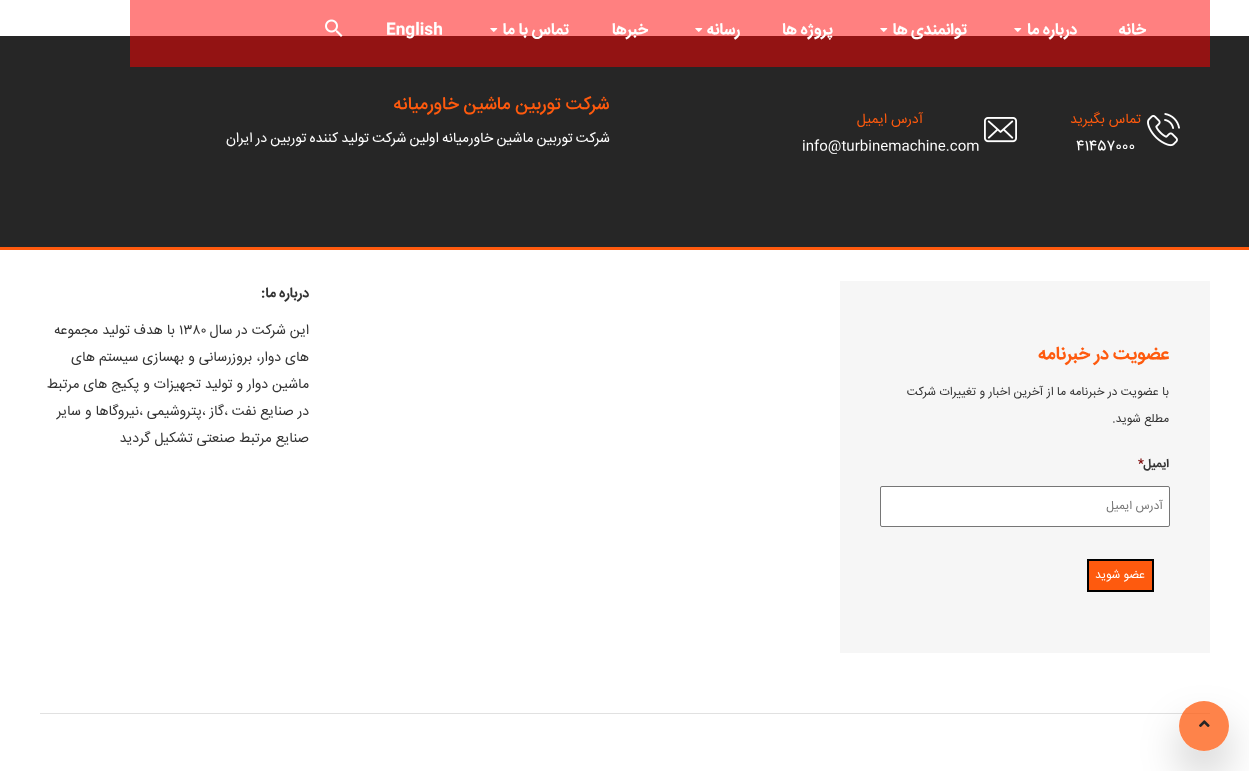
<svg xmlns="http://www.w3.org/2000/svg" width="1249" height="771">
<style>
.a{font:bold 16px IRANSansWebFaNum;direction:rtl;fill:#fff}
.b{font:bold 16px IRANSansWebFaNum;fill:#fff}
.c{font:14px IRANSansWebFaNum;direction:rtl;fill:#fe5a0e}
.d{font:14px IRANSansWebFaNum;fill:#fff}
.e{font:500 18px IRANSansWebFaNum;direction:rtl;fill:#fe5a0e}
.f{font:14px IRANSansWebFaNum;letter-spacing:0.15px;direction:rtl;fill:#fff}
.g{font:bold 18px IRANSansWebFaNum;direction:rtl;fill:#fe5a0e}
.h{font:12px IRANSansWebFaNum;direction:rtl;fill:#333}
.i{font:bold 12px IRANSansWebFaNum;direction:rtl;fill:#333}
.j{font:bold 12px IRANSansWebFaNum;fill:#790000}
.k{font:12px IRANSansWebFaNum;direction:rtl;fill:#757575}
.l{font:12px IRANSansWebFaNum;direction:rtl;fill:#fff}
.m{font:bold 14px IRANSansWebFaNum;direction:rtl;fill:#333}
.n{font:14px IRANSansWebFaNum;direction:rtl;fill:#333}
.o{font:14px IRANSansWebFaNum;fill:#333}
</style>
<defs>
<clipPath id="clip1"><path d="M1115 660h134v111h-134zm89 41c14 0 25 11 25 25c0 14-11 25-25 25c-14 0-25-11-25-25c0-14 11-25 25-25z" clip-rule="evenodd"/></clipPath>
</defs>
<rect width="100%" height="100%" fill="#fff"/>
<path fill="#ff8080" d="M130 0h1080v36H130z"/>
<image href="1.png" x="1014" y="28" width="8" height="4"/>
<image href="1.png" x="880" y="28" width="8" height="4"/>
<image href="1.png" x="695" y="28" width="8" height="4"/>
<image href="1.png" x="490" y="28" width="8" height="4"/>
<path fill="#262626" d="M0 36h1249v211H0z"/>
<path fill="#931313" d="M130 36h1080v31H130z"/>
<image href="2.png" x="325" y="19" width="18" height="18"/>
<path fill="#fe5a0e" d="M0 247h1249v3H0z"/>
<image href="3.png" x="1147" y="113" width="33" height="34"/>
<image href="4.png" x="984" y="117" width="33" height="26"/>
<path fill="#f6f6f6" d="M840 281h370v372H840z"/>
<rect fill="#fff" stroke="#767676" x="880.5" y="486.5" width="289" height="40" rx="1.5"/>
<path fill="#fe5a0e" stroke="#000" stroke-width="2" d="M1088 560h65v31H1088z"/>
<path fill="#e1e1e1" d="M40 713h1170v1H40z"/>
<g clip-path="url(#clip1)">
<rect fill="#00000033" filter="blur(21px)" x="1179" y="724" width="50" height="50" rx="25"/>
</g>
<circle fill="#fe5a0ebf" cx="1204" cy="726" r="25"/>
<image href="5.png" x="1199" y="720" width="11" height="7"/>
<text class="a" x="1146" y="34">خانه</text>
<text class="a" x="1077" y="34">درباره ما</text>
<text class="a" x="967" y="34">توانمندی ها</text>
<text class="a" x="833" y="34">پروژه ها</text>
<text class="a" x="740" y="34">رسانه</text>
<text class="a" x="648" y="34">خبرها</text>
<text class="a" x="569" y="34">تماس با ما</text>
<text class="b" x="386" y="34">English</text>
<text class="c" x="1141" y="123">تماس بگیرید</text>
<text class="d" x="1076" y="150">41457000</text>
<text class="c" x="923" y="123">آدرس ایمیل</text>
<text class="d" x="802" y="150">info@turbinemachine.com</text>
<text class="e" x="609" y="109">شرکت توربین ماشین خاورمیانه</text>
<text class="f" x="610" y="142" word-spacing="-0.75">شرکت توربین ماشین خاورمیانه اولین شرکت تولید کننده توربین در ایران</text>
<text class="g" x="1169" y="359">عضویت در خبرنامه</text>
<text class="h" x="1169" y="395">با عضویت در خبرنامه ما از آخرین اخبار و تغییرات شرکت</text>
<text class="h" x="1169" y="422">مطلع شوید.</text>
<text class="i" x="1169" y="467">ایمیل</text>
<text class="j" x="1138" y="467">*</text>
<text class="k" x="1163" y="509">آدرس ایمیل</text>
<text class="l" x="1145" y="578">عضو شوید</text>
<text class="m" x="309" y="297">درباره ما:</text>
<text class="n" x="309" y="334">این شرکت در سال</text>
<text class="o" x="179" y="334">۱۳۸۰</text>
<text class="n" x="175" y="334">با هدف تولید مجموعه</text>
<text class="n" x="309" y="361">های دوار، بروزرسانی و بهسازی سیستم های</text>
<text class="n" x="309" y="388">ماشین دوار و تولید تجهیزات و پکیج های مرتبط</text>
<text class="n" x="309" y="415">در صنایع نفت ،گاز ،پتروشیمی ،نیروگاها و سایر</text>
<text class="n" x="309" y="442">صنایع مرتبط صنعتی تشکیل گردید</text>
</svg>
